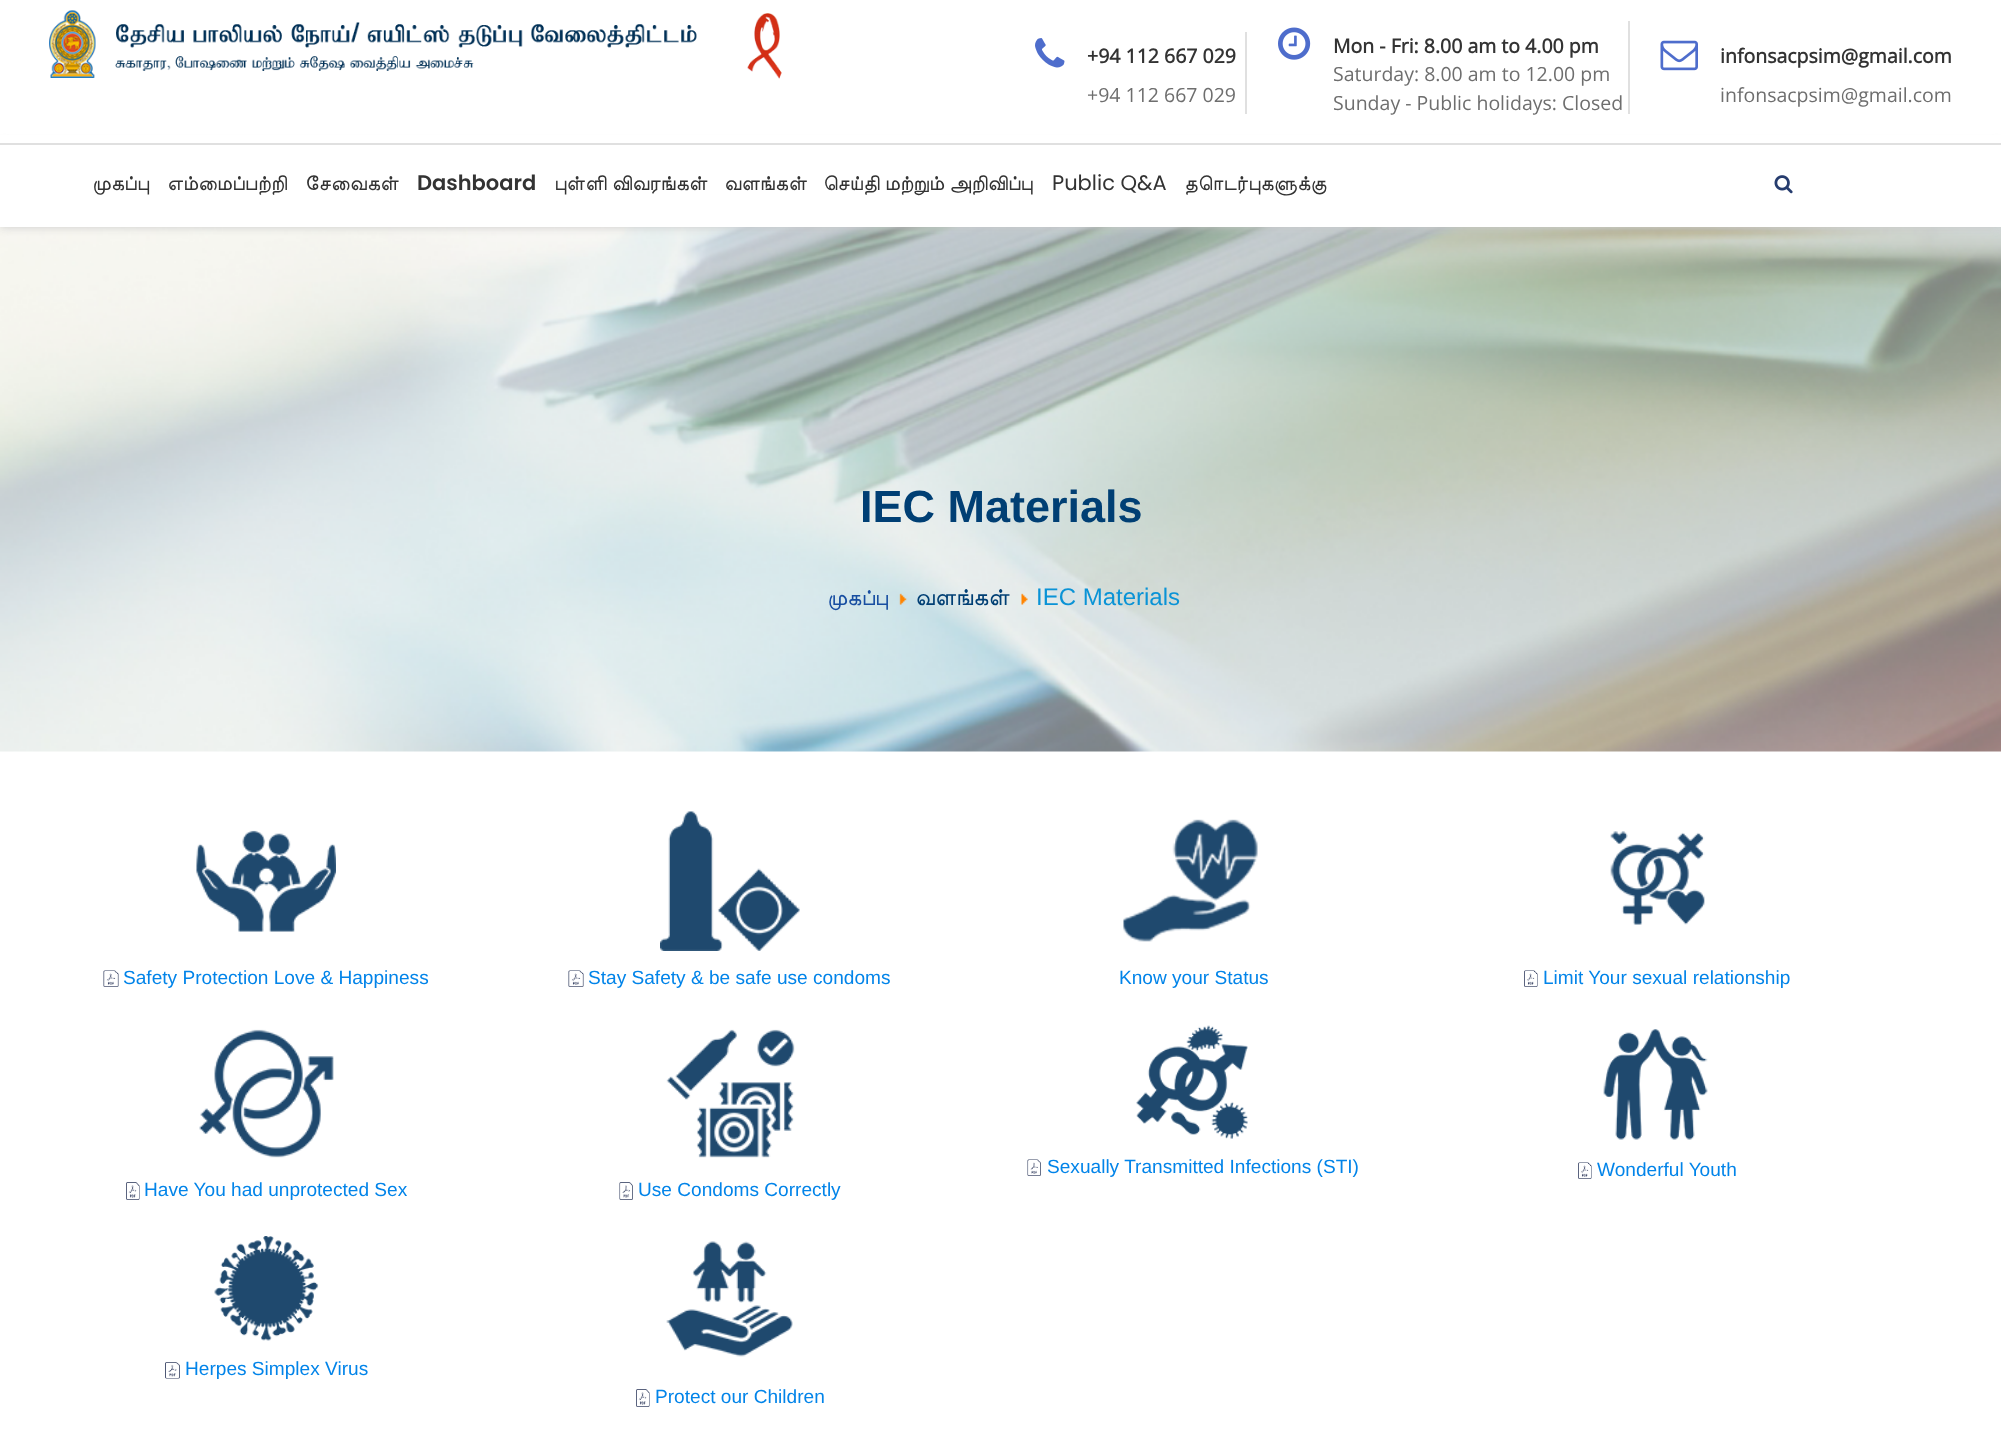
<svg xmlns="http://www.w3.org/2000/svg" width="2001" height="1434">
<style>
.a{font:bold 19.5px Open Sans;fill:#333}
.b{font:19.5px Open Sans;fill:#6e6e6e}
.c{font:21px FreeSans;fill:#333}
.d{font:600 21px Poppins;fill:#333}
.e{font:21px Poppins;fill:#333}
.f{font:bold 45px Liberation Sans;fill:#003f74}
.g{font:22.5px FreeSans;fill:#184ea1}
.h{font:24px FreeSans;fill:#003f74}
.i{font:24px Liberation Sans;fill:#0a93d6}
.j{font:19.1px Liberation Sans;fill:#0284e9}
</style>
<rect width="100%" height="100%" fill="#fff"/>
<image href="6.png" x="0" y="227" width="2001" height="525"/>
<path fill="#ccc" filter="blur(5px)" d="M0 143h2001v84H0z"/>
<path fill="#fff" d="M0 135h2001v8H0z"/>
<image href="1.png" x="49" y="10" width="733" height="69"/>
<path fill="#e0e0e0" d="M1245 32h2v82H1245z"/>
<image href="2.png" x="1035" y="38" width="30" height="30"/>
<path fill="#e0e0e0" d="M1628 21h2v93H1628z"/>
<image href="3.png" x="1278" y="27" width="33" height="33"/>
<image href="4.png" x="1660" y="40" width="38" height="31"/>
<path fill="#fff" d="M0 145h2001v82H0z"/>
<path fill="#e0e0e0" d="M0 143h2001v2H0z"/>
<image href="5.png" x="1774" y="175" width="19" height="19"/>
<image href="7.png" x="899" y="593" width="8" height="12"/>
<image href="8.png" x="1021" y="593" width="7" height="12"/>
<image href="9.png" x="196" y="830" width="140" height="102"/>
<image href="10.png" x="103" y="970" width="16" height="17"/>
<image href="11.png" x="660" y="811" width="140" height="140"/>
<image href="12.png" x="568" y="970" width="16" height="17"/>
<image href="13.png" x="1123" y="819" width="135" height="123"/>
<image href="14.png" x="1610" y="831" width="95" height="94"/>
<image href="15.png" x="1524" y="970" width="14" height="17"/>
<image href="16.png" x="1136" y="1025" width="112" height="114"/>
<image href="17.png" x="1027" y="1159" width="14" height="17"/>
<image href="18.png" x="1603" y="1029" width="105" height="111"/>
<image href="15.png" x="1578" y="1162" width="14" height="17"/>
<image href="19.png" x="199" y="1029" width="135" height="129"/>
<image href="20.png" x="126" y="1182" width="14" height="18"/>
<image href="21.png" x="666" y="1029" width="129" height="129"/>
<image href="22.png" x="619" y="1182" width="14" height="18"/>
<image href="23.png" x="214" y="1236" width="105" height="105"/>
<image href="24.png" x="165" y="1362" width="15" height="17"/>
<image href="25.png" x="666" y="1241" width="127" height="116"/>
<image href="20.png" x="636" y="1389" width="14" height="18"/>
<text class="a" x="1087" y="63">+94 112 667 029</text>
<text class="b" x="1087" y="102">+94 112 667 029</text>
<text class="a" x="1333" y="53">Mon - Fri: 8.00 am to 4.00 pm</text>
<text class="b" x="1333" y="81">Saturday: 8.00 am to 12.00 pm</text>
<text class="b" x="1333" y="110">Sunday - Public holidays: Closed</text>
<text class="a" x="1720" y="63">infonsacpsim@gmail.com</text>
<text class="b" x="1720" y="102">infonsacpsim@gmail.com</text>
<text class="c" x="92" y="190">முகப்பு</text>
<text class="c" x="167" y="190">எம்மைப்பற்றி</text>
<text class="c" x="305" y="190">சேவைகள்</text>
<text class="d" x="417" y="190">Dashboard</text>
<text class="c" x="554" y="190">புள்ளி விவரங்கள்</text>
<text class="c" x="724" y="190">வளங்கள்</text>
<text class="c" x="823" y="190">செய்தி மற்றும் அறிவிப்பு</text>
<text class="e" x="1052" y="190">Public Q&amp;A</text>
<text class="c" x="1184" y="190">தொடர்புகளுக்கு</text>
<text class="f" x="860" y="522">IEC Materials</text>
<text class="g" x="827" y="605">முகப்பு</text>
<text class="h" x="915" y="605">வளங்கள்</text>
<text class="i" x="1036" y="605">IEC Materials</text>
<text class="j" x="123" y="984">Safety Protection Love &amp; Happiness</text>
<text class="j" x="588" y="984">Stay Safety &amp; be safe use condoms</text>
<text class="j" x="1119" y="984">Know your Status</text>
<text class="j" x="1543" y="984">Limit Your sexual relationship</text>
<text class="j" x="1047" y="1173">Sexually Transmitted Infections (STI)</text>
<text class="j" x="1597" y="1176">Wonderful Youth</text>
<text class="j" x="144" y="1196">Have You had unprotected Sex</text>
<text class="j" x="638" y="1196">Use Condoms Correctly</text>
<text class="j" x="185" y="1375">Herpes Simplex Virus</text>
<text class="j" x="655" y="1403">Protect our Children</text>
</svg>
